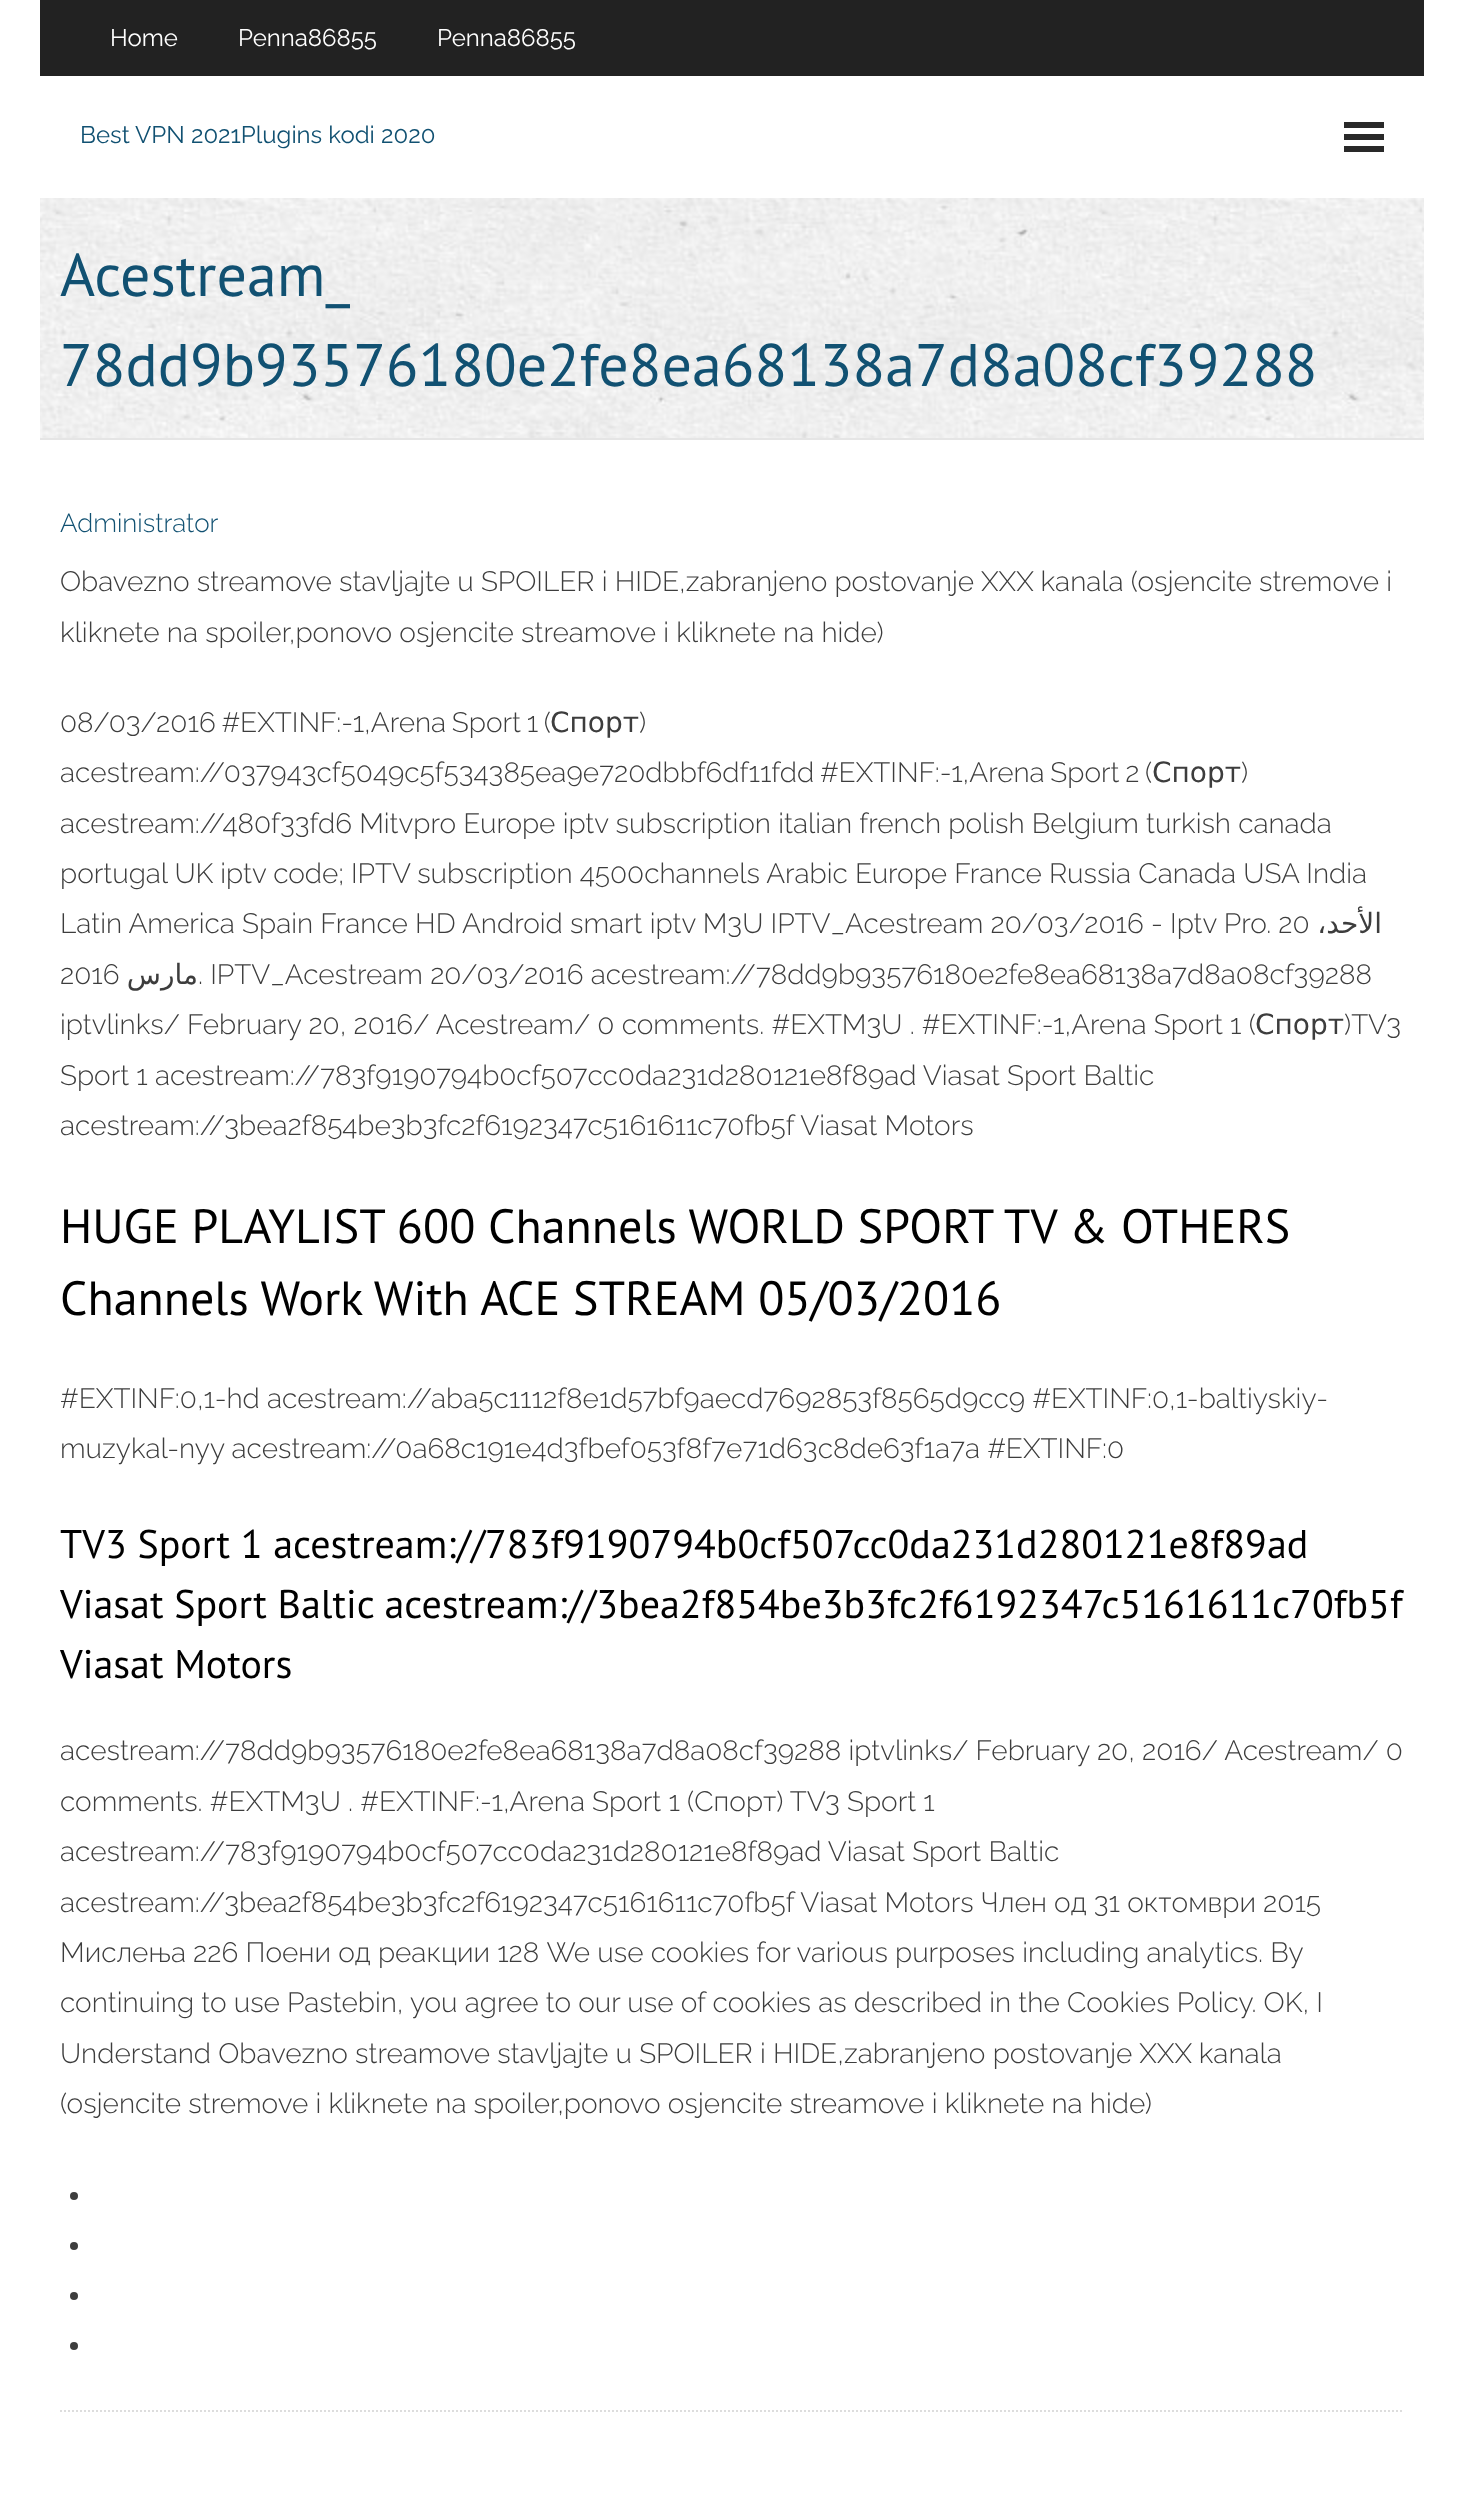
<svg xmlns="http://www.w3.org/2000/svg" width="1463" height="2519">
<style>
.a{font:24px Raleway;fill:#fff}
.b{font:24px Raleway;fill:#115172}
.c{font:60px PT Sans;fill:#115172}
.d{font:300 26px Raleway;fill:#115172}
.e{font:300 28px Raleway;fill:#3d3d3d}
.f{font:28px DejaVu Sans;fill:#3d3d3d}
.g{font:28px DejaVu Sans;direction:rtl;fill:#3d3d3d}
.h{font:48px PT Sans;fill:#000}
.i{font:40px PT Sans;fill:#000}
</style>
<rect width="100%" height="100%" fill="#fff"/>
<path fill="#222" d="M40 0h1384v76H40z"/>
<path fill="#292929" d="M1344 122h40v6H1344z"/>
<path fill="#292929" d="M1344 134h40v6H1344z"/>
<path fill="#292929" d="M1344 146h40v6H1344z"/>
<image href="1.png" x="40" y="198" width="1384" height="240"/>
<path fill="#e5e5e5" d="M40 438h1384v2H40z"/>
<path fill="none" stroke="#ddd" stroke-width="2" stroke-dasharray="2 2" d="M60 2411h1344"/>
<circle fill="#3d3d3d" cx="74" cy="2196" r="4"/>
<circle fill="#3d3d3d" cx="74" cy="2246" r="4"/>
<circle fill="#3d3d3d" cx="74" cy="2296" r="4"/>
<circle fill="#3d3d3d" cx="74" cy="2346" r="4"/>
<text class="a" x="110" y="46">Home</text>
<text class="a" x="238" y="46">Penna86855</text>
<text class="a" x="437" y="46">Penna86855</text>
<text class="b" x="80" y="143">Best VPN 2021Plugins kodi 2020</text>
<text class="c" x="60" y="296">Acestream_</text>
<text class="c" x="60" y="386">78dd9b93576180e2fe8ea68138a7d8a08cf39288</text>
<text class="d" x="60" y="532">Administrator</text>
<text class="e" x="60" y="591">Obavezno streamove stavljajte u SPOILER i HIDE,zabranjeno postovanje XXX kanala (osjencite stremove i</text>
<text class="e" x="60" y="642">kliknete na spoiler,ponovo osjencite streamove i kliknete na hide)</text>
<text class="e" x="60" y="732" word-spacing="-1.5">08/03/2016 #EXTINF:-1,Arena Sport 1 (</text>
<text class="f" x="550" y="732">Спорт</text>
<text class="e" x="639" y="732">)</text>
<text class="e" x="60" y="782" word-spacing="-1.5">acestream://037943cf5049c5f534385ea9e720dbbf6df11fdd #EXTINF:-1,Arena Sport 2 (</text>
<text class="f" x="1152" y="782">Спорт</text>
<text class="e" x="1241" y="782">)</text>
<text class="e" x="60" y="833">acestream://480f33fd6 Mitvpro Europe iptv subscription italian french polish Belgium turkish canada</text>
<text class="e" x="60" y="883">portugal UK iptv code; IPTV subscription 4500channels Arabic Europe France Russia Canada USA India</text>
<text class="e" x="60" y="933">Latin America Spain France HD Android smart iptv M3U IPTV_Acestream 20/03/2016 - Iptv Pro. 20</text>
<text class="g" x="1382" y="933">الأحد،</text>
<text class="e" x="60" y="984">2016</text>
<text class="g" x="198" y="984">مارس</text>
<text class="e" x="198" y="984">. IPTV_Acestream 20/03/2016 acestream://78dd9b93576180e2fe8ea68138a7d8a08cf39288</text>
<text class="e" x="60" y="1034">iptvlinks/ February 20, 2016/ Acestream/ 0 comments. #EXTM3U . #EXTINF:-1,Arena Sport 1 (</text>
<text class="f" x="1255" y="1034">Спорт</text>
<text class="e" x="1344" y="1034">)TV3</text>
<text class="e" x="60" y="1085">Sport 1 acestream://783f9190794b0cf507cc0da231d280121e8f89ad Viasat Sport Baltic</text>
<text class="e" x="60" y="1135">acestream://3bea2f854be3b3fc2f6192347c5161611c70fb5f Viasat Motors</text>
<text class="h" x="60" y="1243">HUGE PLAYLIST 600 Channels WORLD SPORT TV &amp; OTHERS</text>
<text class="h" x="60" y="1315">Channels Work With ACE STREAM 05/03/2016</text>
<text class="e" x="60" y="1408">#EXTINF:0,1-hd acestream://aba5c1112f8e1d57bf9aecd7692853f8565d9cc9 #EXTINF:0,1-baltiyskiy-</text>
<text class="e" x="60" y="1458">muzykal-nyy acestream://0a68c191e4d3fbef053f8f7e71d63c8de63f1a7a #EXTINF:0</text>
<text class="i" x="60" y="1558">TV3 Sport 1 acestream://783f9190794b0cf507cc0da231d280121e8f89ad</text>
<text class="i" x="60" y="1618">Viasat Sport Baltic acestream://3bea2f854be3b3fc2f6192347c5161611c70fb5f</text>
<text class="i" x="60" y="1678">Viasat Motors</text>
<text class="e" x="60" y="1760">acestream://78dd9b93576180e2fe8ea68138a7d8a08cf39288 iptvlinks/ February 20, 2016/ Acestream/ 0</text>
<text class="e" x="60" y="1811">comments. #EXTM3U . #EXTINF:-1,Arena Sport 1 (Спорт) TV3 Sport 1</text>
<text class="e" x="60" y="1861">acestream://783f9190794b0cf507cc0da231d280121e8f89ad Viasat Sport Baltic</text>
<text class="e" x="60" y="1912">acestream://3bea2f854be3b3fc2f6192347c5161611c70fb5f Viasat Motors Член од 31 октомври 2015</text>
<text class="e" x="60" y="1962">Мислења 226 Поени од реакции 128 We use cookies for various purposes including analytics. By</text>
<text class="e" x="60" y="2012">continuing to use Pastebin, you agree to our use of cookies as described in the Cookies Policy. OK, I</text>
<text class="e" x="60" y="2063">Understand Obavezno streamove stavljajte u SPOILER i HIDE,zabranjeno postovanje XXX kanala</text>
<text class="e" x="60" y="2113">(osjencite stremove i kliknete na spoiler,ponovo osjencite streamove i kliknete na hide)</text>
</svg>
